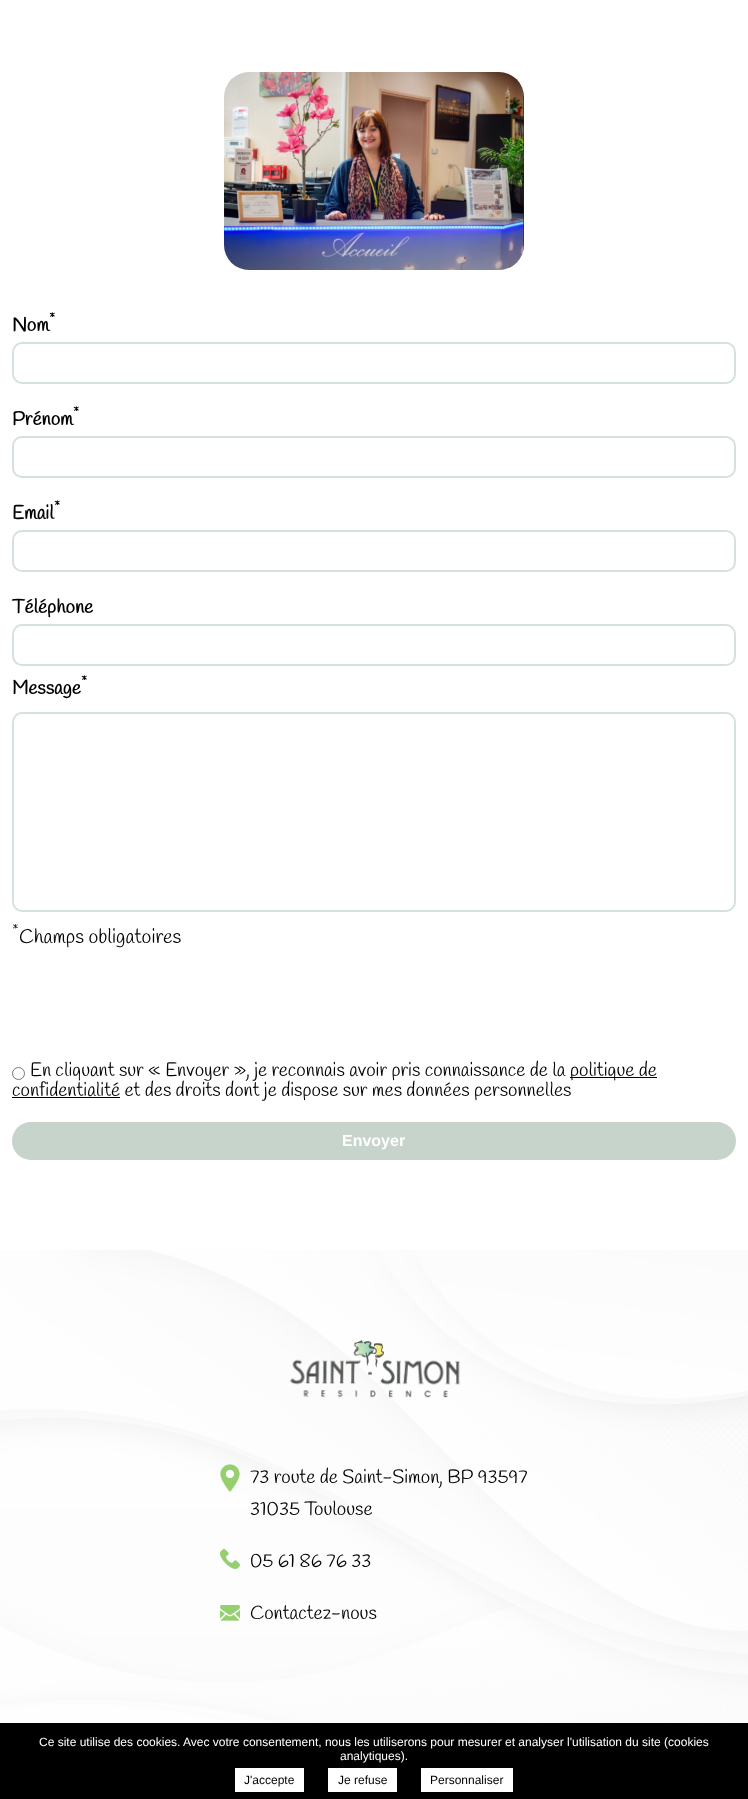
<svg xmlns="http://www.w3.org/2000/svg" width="748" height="1799">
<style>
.a{font:bold 14px Handlee;fill:#000}
.b{font:bold 19.2px Handlee;fill:#000}
.c{font:15px Handlee;fill:#000}
.d{font:20px Handlee;fill:#000}
.e{font:19.2px Handlee;fill:#000}
.f{font:bold 16px Liberation Sans;fill:#fff}
.g{font:12px Liberation Sans;fill:#fff}
.h{font:12px Liberation Sans;fill:#000}
</style>
<rect width="100%" height="100%" fill="#fff"/>
<image href="1.png" x="224" y="72" width="300" height="198"/>
<rect fill="none" stroke="#d7e1db" stroke-width="2" x="13" y="343" width="722" height="40" rx="9"/>
<rect fill="none" stroke="#d7e1db" stroke-width="2" x="13" y="437" width="722" height="40" rx="9"/>
<rect fill="none" stroke="#d7e1db" stroke-width="2" x="13" y="531" width="722" height="40" rx="9"/>
<rect fill="none" stroke="#d7e1db" stroke-width="2" x="13" y="625" width="722" height="40" rx="9"/>
<rect fill="none" stroke="#d7e1db" stroke-width="2" x="13" y="713" width="722" height="198" rx="9"/>
<circle fill="none" stroke="#767676" cx="18.5" cy="1073.5" r="6"/>
<path fill="#000" d="M570 1077h87v1H570z"/>
<path fill="#000" d="M12 1097h108v1H12z"/>
<rect fill="#c6d4cc" x="12" y="1122" width="724" height="38" rx="19"/>
<image href="2.png" x="0" y="1250" width="748" height="473"/>
<image href="3.png" x="289" y="1340" width="171" height="58"/>
<image href="4.png" x="220" y="1464" width="20" height="28"/>
<image href="5.png" x="220" y="1549" width="20" height="20"/>
<image href="6.png" x="220" y="1605" width="20" height="16"/>
<path fill="#000" d="M0 1723h748v76H0z"/>
<path fill="#fff" d="M235 1768h69v24H235z"/>
<path fill="#fff" d="M328 1768h69v24H328z"/>
<path fill="#fff" d="M421 1768h92v24H421z"/>
<text class="a" x="49" y="323">*</text>
<text class="b" x="12" y="331">Nom</text>
<text class="a" x="73" y="417">*</text>
<text class="b" x="12" y="425">Prénom</text>
<text class="a" x="54" y="511">*</text>
<text class="b" x="12" y="519">Email</text>
<text class="b" x="12" y="613">Téléphone</text>
<text class="a" x="81" y="686">*</text>
<text class="b" x="12" y="694">Message</text>
<text class="c" x="12" y="935">*</text>
<text class="d" x="19" y="943">Champs obligatoires</text>
<text class="e" x="30" y="1076">En cliquant sur « Envoyer », je reconnais avoir pris connaissance de la</text>
<text class="e" x="570" y="1076">politique de</text>
<text class="e" x="12" y="1096">confidentialité et des droits dont je dispose sur mes données personnelles</text>
<text class="f" x="342" y="1146">Envoyer</text>
<text class="e" x="250" y="1483">73 route de Saint-Simon, BP 93597</text>
<text class="e" x="250" y="1515">31035 Toulouse</text>
<text class="e" x="250" y="1567">05 61 86 76 33</text>
<text class="e" x="250" y="1619">Contactez-nous</text>
<text class="g" x="39" y="1746">Ce site utilise des cookies. Avec votre consentement, nous les utiliserons pour mesurer et analyser l'utilisation du site (cookies</text>
<text class="g" x="340" y="1760">analytiques).</text>
<text class="h" x="244" y="1784">J'accepte</text>
<text class="h" x="338" y="1784">Je refuse</text>
<text class="h" x="430" y="1784">Personnaliser</text>
</svg>
